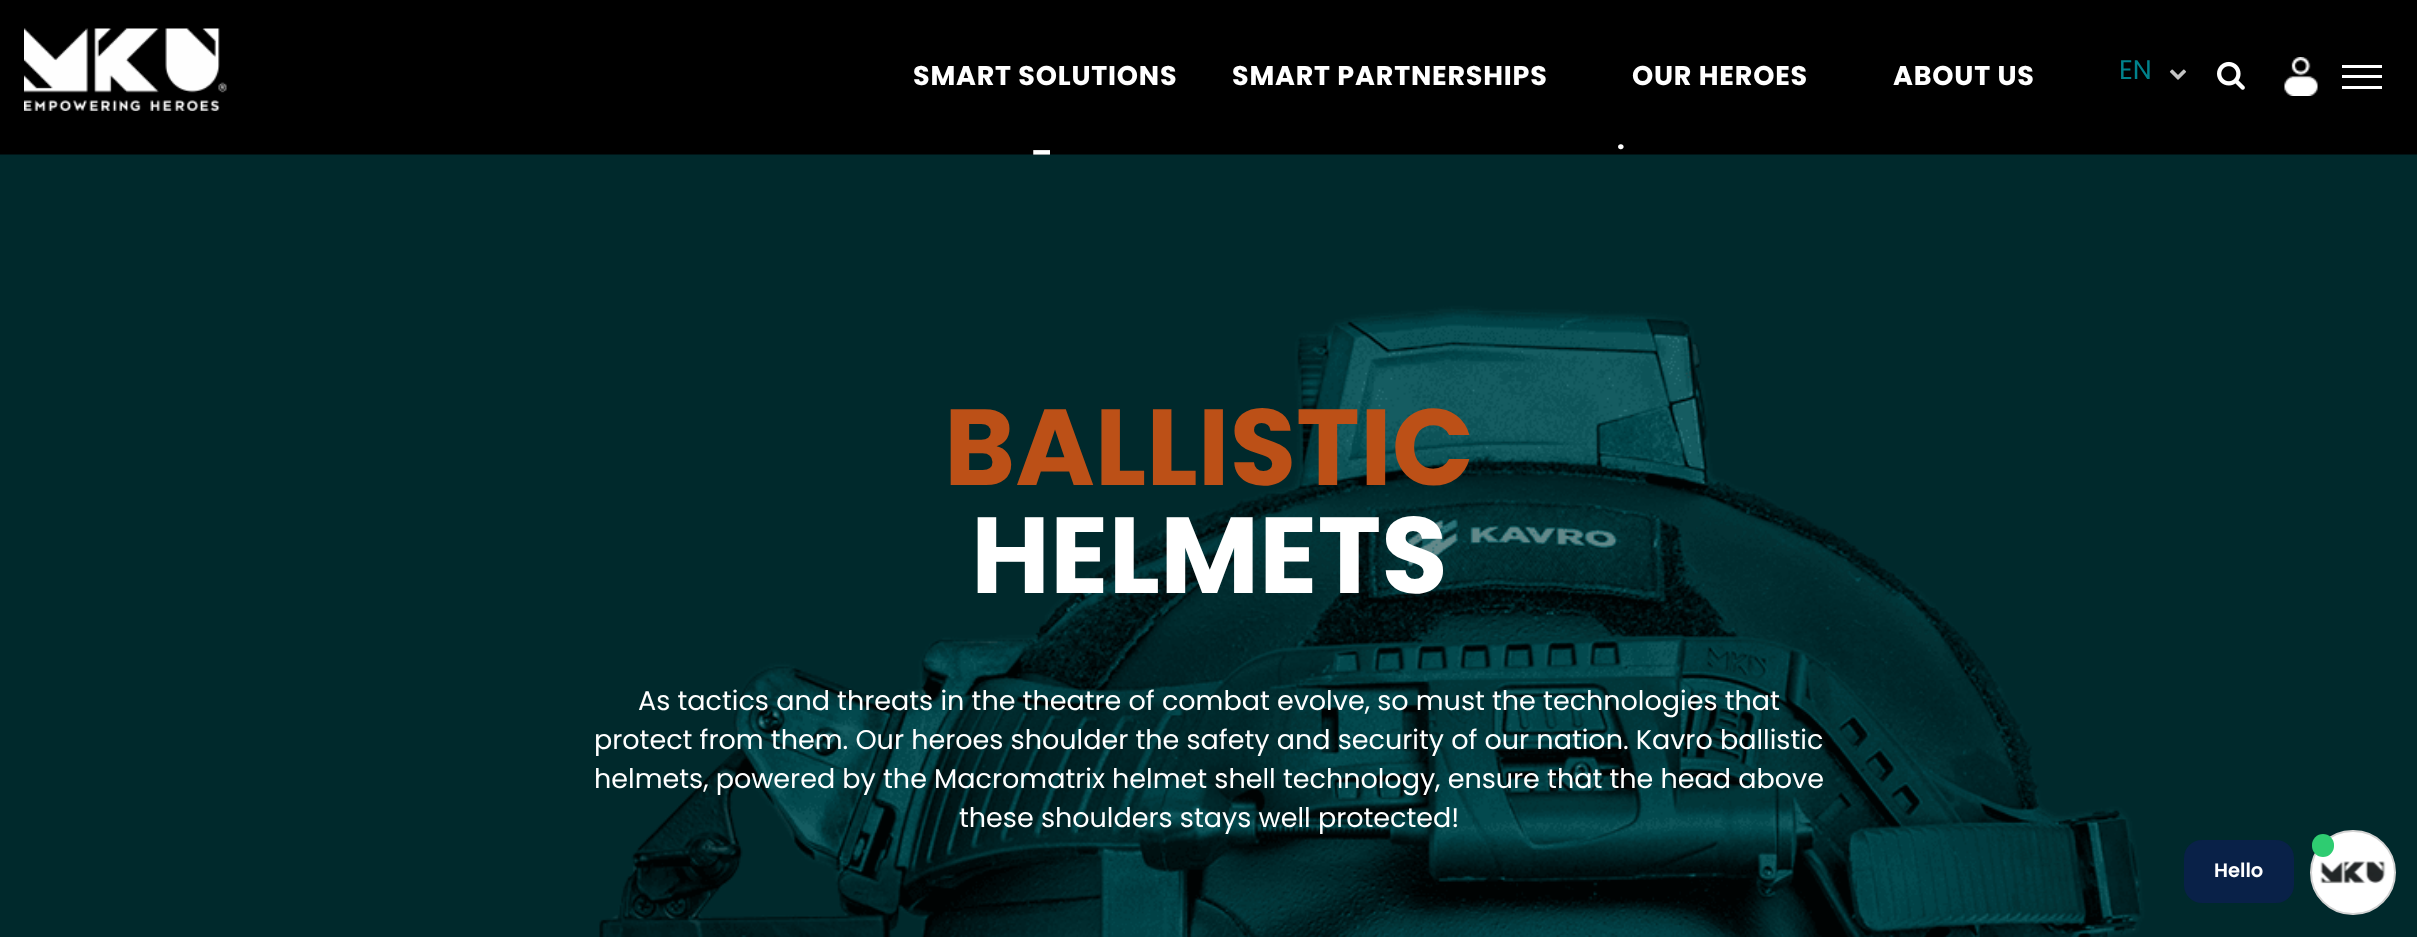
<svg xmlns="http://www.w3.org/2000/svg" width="2417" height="937">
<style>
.a{font:bold 27px Poppins;letter-spacing:0.8px;fill:#fff}
.b{font:27px Poppins;fill:#00828c}
.c{font:bold 27px Poppins;fill:#fff}
.d{font:bold 108px Poppins;fill:#bc5017}
.e{font:bold 108px Poppins;fill:#fff}
.f{font:27px Poppins;fill:#fff}
.g{font:600 19.5px Poppins;fill:#fff}
</style>
<rect width="100%" height="100%" fill="#000"/>
<image href="1.png" x="24" y="28" width="203" height="83"/>
<image href="2.png" x="2169" y="69" width="18" height="11"/>
<image href="3.png" x="2217" y="61" width="28" height="29"/>
<image href="4.png" x="2284" y="57" width="34" height="39"/>
<path fill="#fff" d="M2342 65h40v3H2342z"/>
<path fill="#fff" d="M2342 75h40v3H2342z"/>
<path fill="#fff" d="M2342 86h40v3H2342z"/>
<image href="5.png" x="0" y="154" width="2417" height="783"/>
<rect fill="#092148" x="2184" y="840" width="110" height="63" rx="18"/>
<rect fill="#fff" stroke="#d3d3d3" stroke-width="2" x="2311" y="831" width="84" height="83" rx="41.5"/>
<rect fill="#2ecc71" x="2312" y="834" width="22" height="23" rx="11"/>
<image href="6.png" x="2320" y="861" width="66" height="23"/>
<text class="a" x="913" y="85">SMART SOLUTIONS</text>
<text class="a" x="1232" y="85">SMART PARTNERSHIPS</text>
<text class="a" x="1632" y="85">OUR HEROES</text>
<text class="a" x="1893" y="85">ABOUT US</text>
<text class="b" x="2119" y="79">EN</text>
<text class="c" x="1617" y="149">.</text>
<text class="c" x="1031" y="149">_</text>
<text class="d" x="944" y="485">BALLISTIC</text>
<text class="e" x="971" y="593">HELMETS</text>
<text class="f" x="638" y="710">As tactics and threats in the theatre of combat evolve, so must the technologies that</text>
<text class="f" x="594" y="749">protect from them. Our heroes shoulder the safety and security of our nation. Kavro ballistic</text>
<text class="f" x="594" y="788">helmets, powered by the Macromatrix helmet shell technology, ensure that the head above</text>
<text class="f" x="959" y="827">these shoulders stays well protected!</text>
<text class="g" x="2214" y="877">Hello</text>
</svg>
